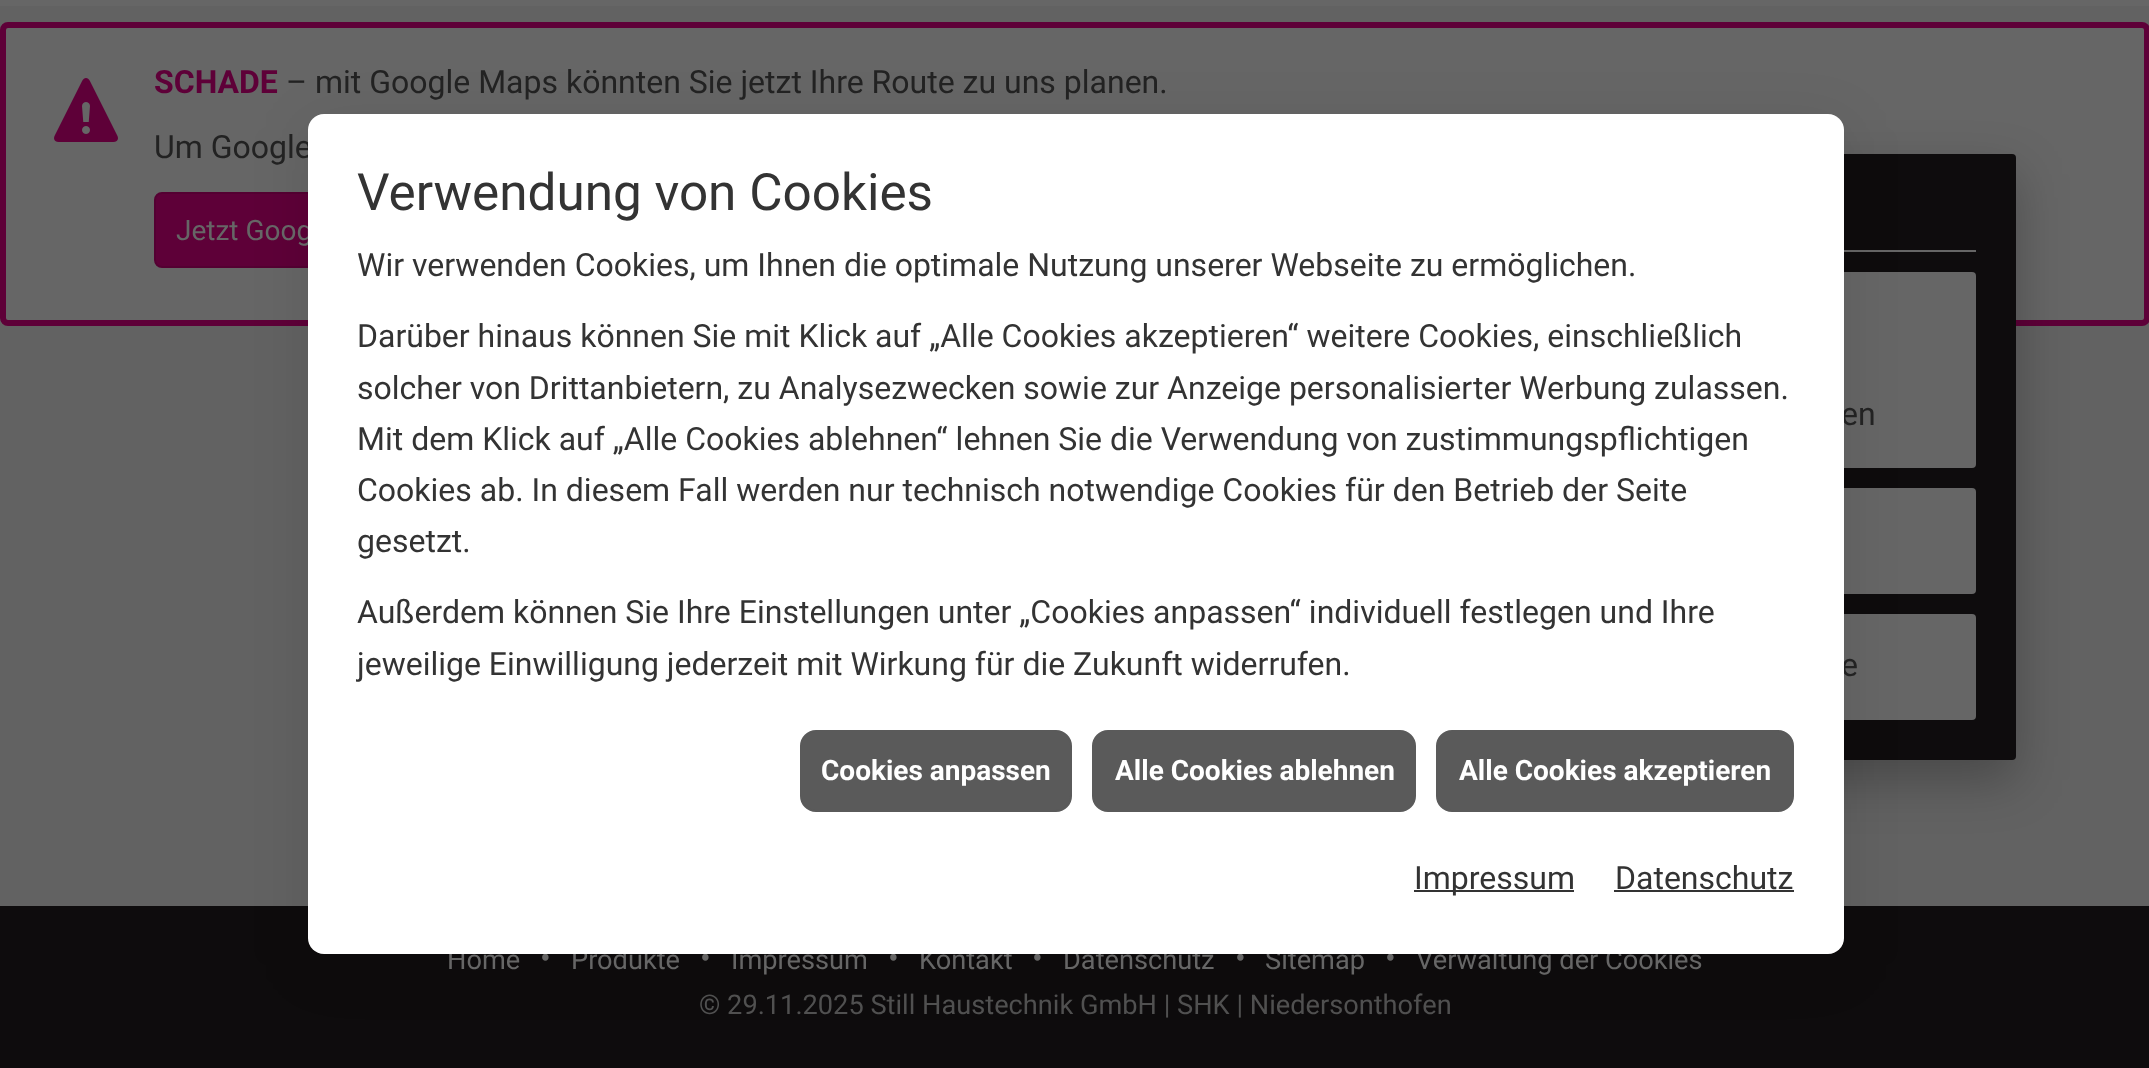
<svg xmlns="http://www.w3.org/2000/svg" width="2149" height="1068">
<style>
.a{font:bold 32px Roboto;fill:#5e0038}
.b{font:32px Roboto;fill:#222}
.c{font:28px Roboto;fill:#666}
.d{font:27.2px Roboto;fill:#666}
.e{font:32px Roboto;fill:#666}
.f{font:27.2px Roboto;fill:#505050}
.g{font:51.25px Roboto;fill:#333}
.h{font:32px Roboto;fill:#333}
.i{font:bold 28px Roboto;fill:#fff}
</style>
<rect width="100%" height="100%" fill="#626262"/>
<path fill="#666" d="M0 0h2149v6H0z"/>
<rect fill="#666" stroke="#5e0038" stroke-width="6" x="3" y="25" width="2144" height="298" rx="5"/>
<image href="1.png" x="54" y="78" width="64" height="64"/>
<rect fill="#5e0038" stroke="#540032" stroke-width="2" x="155" y="193" width="522" height="74" rx="7"/>
<rect fill="#00000042" filter="blur(25px)" x="1388" y="174" width="628" height="606" rx="4"/>
<rect fill="#0e0c0d" x="1388" y="154" width="628" height="606" rx="4"/>
<path fill="#666" d="M1844 250h132v2H1844z"/>
<rect fill="#666" x="1428" y="272" width="548" height="196" rx="4"/>
<rect fill="#666" x="1428" y="488" width="548" height="106" rx="4"/>
<rect fill="#666" x="1428" y="614" width="548" height="106" rx="4"/>
<path fill="#0e0c0d" d="M0 906h2149v162H0z"/>
<rect fill="#0000001a" filter="blur(28px)" x="308" y="126" width="1536" height="840" rx="16"/>
<text class="a" x="154" y="93">SCHADE</text>
<text class="b" x="286" y="93">– mit Google Maps könnten Sie jetzt Ihre Route zu uns planen.</text>
<text class="b" x="154" y="158">Um Google</text>
<text class="c" x="176" y="240">Jetzt Goog</text>
<text class="b" x="1841" y="425">en</text>
<text class="b" x="1841" y="676">e</text>
<text class="d" x="447" y="969">Home</text>
<text class="e" x="540" y="969">•</text>
<text class="d" x="571" y="969">Produkte</text>
<text class="e" x="700" y="969">•</text>
<text class="d" x="731" y="969">Impressum</text>
<text class="e" x="888" y="969">•</text>
<text class="d" x="919" y="969">Kontakt</text>
<text class="e" x="1032" y="969">•</text>
<text class="d" x="1063" y="969">Datenschutz</text>
<text class="e" x="1235" y="969">•</text>
<text class="d" x="1265" y="969">Sitemap</text>
<text class="e" x="1385" y="969">•</text>
<text class="d" x="1416" y="969">Verwaltung der Cookies</text>
<text class="f" x="699" y="1014">© 29.11.2025 Still Haustechnik GmbH | SHK | Niedersonthofen</text>
<rect fill="#fff" x="308" y="114" width="1536" height="840" rx="16"/>
<text class="g" x="357" y="210">Verwendung von Cookies</text>
<text class="h" x="357" y="276">Wir verwenden Cookies, um Ihnen die optimale Nutzung unserer Webseite zu ermöglichen.</text>
<text class="h" x="357" y="347">Darüber hinaus können Sie mit Klick auf „Alle Cookies akzeptieren“ weitere Cookies, einschließlich</text>
<text class="h" x="357" y="399">solcher von Drittanbietern, zu Analysezwecken sowie zur Anzeige personalisierter Werbung zulassen.</text>
<text class="h" x="357" y="450">Mit dem Klick auf „Alle Cookies ablehnen“ lehnen Sie die Verwendung von zustimmungspflichtigen</text>
<text class="h" x="357" y="501">Cookies ab. In diesem Fall werden nur technisch notwendige Cookies für den Betrieb der Seite</text>
<text class="h" x="357" y="552">gesetzt.</text>
<text class="h" x="357" y="623">Außerdem können Sie Ihre Einstellungen unter „Cookies anpassen“ individuell festlegen und Ihre</text>
<text class="h" x="357" y="675">jeweilige Einwilligung jederzeit mit Wirkung für die Zukunft widerrufen.</text>
<rect fill="#5a5a5a" stroke="#5a5a5a" stroke-width="2" x="801" y="731" width="270" height="80" rx="15"/>
<text class="i" x="821" y="780">Cookies anpassen</text>
<rect fill="#5a5a5a" stroke="#5a5a5a" stroke-width="2" x="1093" y="731" width="322" height="80" rx="15"/>
<text class="i" x="1115" y="780">Alle Cookies ablehnen</text>
<rect fill="#5a5a5a" stroke="#5a5a5a" stroke-width="2" x="1437" y="731" width="356" height="80" rx="15"/>
<text class="i" x="1459" y="780">Alle Cookies akzeptieren</text>
<path fill="#333" d="M1414 890h160v2H1414z"/>
<text class="h" x="1414" y="889">Impressum</text>
<text class="h" x="1615" y="889">Datenschutz</text>
<path fill="#333" d="M1614 890h180v2H1614z"/>
</svg>
